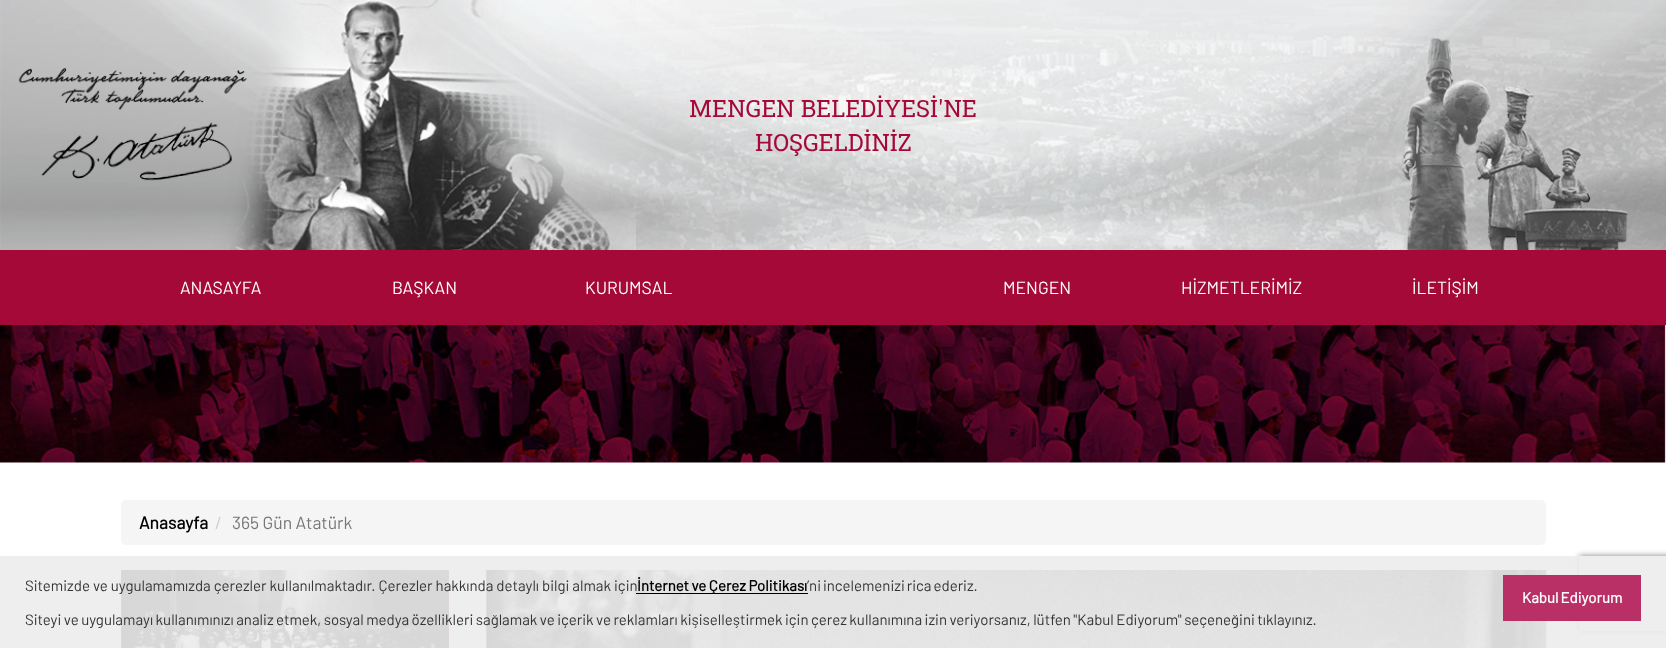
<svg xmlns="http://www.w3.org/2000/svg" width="1666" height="648">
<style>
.a{font:23.75px Roboto Slab;fill:#a40938}
.b{font:17.5px Barlow;fill:#fff}
.c{font:bold 17.5px Barlow;fill:#000}
.d{font:17.5px Barlow;fill:#ccc}
.e{font:17.5px Barlow;fill:#777}
.f{font:15px Barlow;fill:#353535}
.g{font:bold 15px Barlow;fill:#000}
.h{font:bold 15px Barlow;fill:#fff}
</style>
<defs>
<clipPath id="clip1"><path d="M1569 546h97v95h-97zm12.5 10h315c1.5 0 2.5 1 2.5 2.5v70c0 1.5-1 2.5-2.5 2.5h-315c-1.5 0-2.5-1-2.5-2.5v-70c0-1.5 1-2.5 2.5-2.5z" clip-rule="evenodd"/></clipPath>
</defs>
<rect width="100%" height="100%" fill="#fff"/>
<image href="1.png" x="0" y="0" width="1666" height="250"/>
<image href="2.png" x="18" y="0" width="618" height="250"/>
<image href="3.png" x="1401" y="38" width="227" height="212"/>
<path fill="#a40938" d="M0 250h1666v75H0z"/>
<image href="4.png" x="0" y="325" width="1666" height="138"/>
<rect fill="#f5f5f5" x="121" y="500" width="1425" height="45" rx="5"/>
<path fill="#a40938" d="M121 570h328v78H121z"/>
<image href="5.png" x="121" y="570" width="328" height="78"/>
<image href="6.png" x="486" y="570" width="1061" height="78"/>
<g clip-path="url(#clip1)">
<rect fill="#808080" filter="blur(3px)" x="1579" y="556" width="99" height="75" rx="2.5"/>
</g>
<path fill="#ececece8" d="M0 556h1666v92H0z"/>
<path fill="#000" d="M636 593h172v1H636z"/>
<path fill="#b93067" d="M1503 575h138v46H1503z"/>
<text class="a" x="689" y="117">MENGEN BELEDİYESİ'NE</text>
<text class="a" x="755" y="151">HOŞGELDİNİZ</text>
<text class="b" x="180" y="294">ANASAYFA</text>
<text class="b" x="392" y="294">BAŞKAN</text>
<text class="b" x="585" y="294">KURUMSAL</text>
<text class="b" x="1003" y="294">MENGEN</text>
<text class="b" x="1181" y="294">HİZMETLERİMİZ</text>
<text class="b" x="1412" y="294">İLETİŞİM</text>
<text class="c" x="139" y="529">Anasayfa</text>
<text class="d" x="215" y="529">/</text>
<text class="e" x="232" y="529">365 Gün Atatürk</text>
<text class="f" x="25" y="591">Sitemizde ve uygulamamızda çerezler kullanılmaktadır. Çerezler hakkında detaylı bilgi almak için</text>
<text class="g" x="637" y="591" word-spacing="-0.5">İnternet ve Çerez Politikası</text>
<text class="f" x="807" y="591" word-spacing="-1">’ni incelemenizi rica ederiz.</text>
<text class="f" x="25" y="625" word-spacing="-0.5">Siteyi ve uygulamayı kullanımınızı analiz etmek, sosyal medya özellikleri sağlamak ve içerik ve reklamları kişiselleştirmek için çerez kullanımına izin veriyorsanız, lütfen "Kabul Ediyorum" seçeneğini tıklayınız.</text>
<text class="h" x="1522" y="603" word-spacing="-1">Kabul Ediyorum</text>
</svg>
